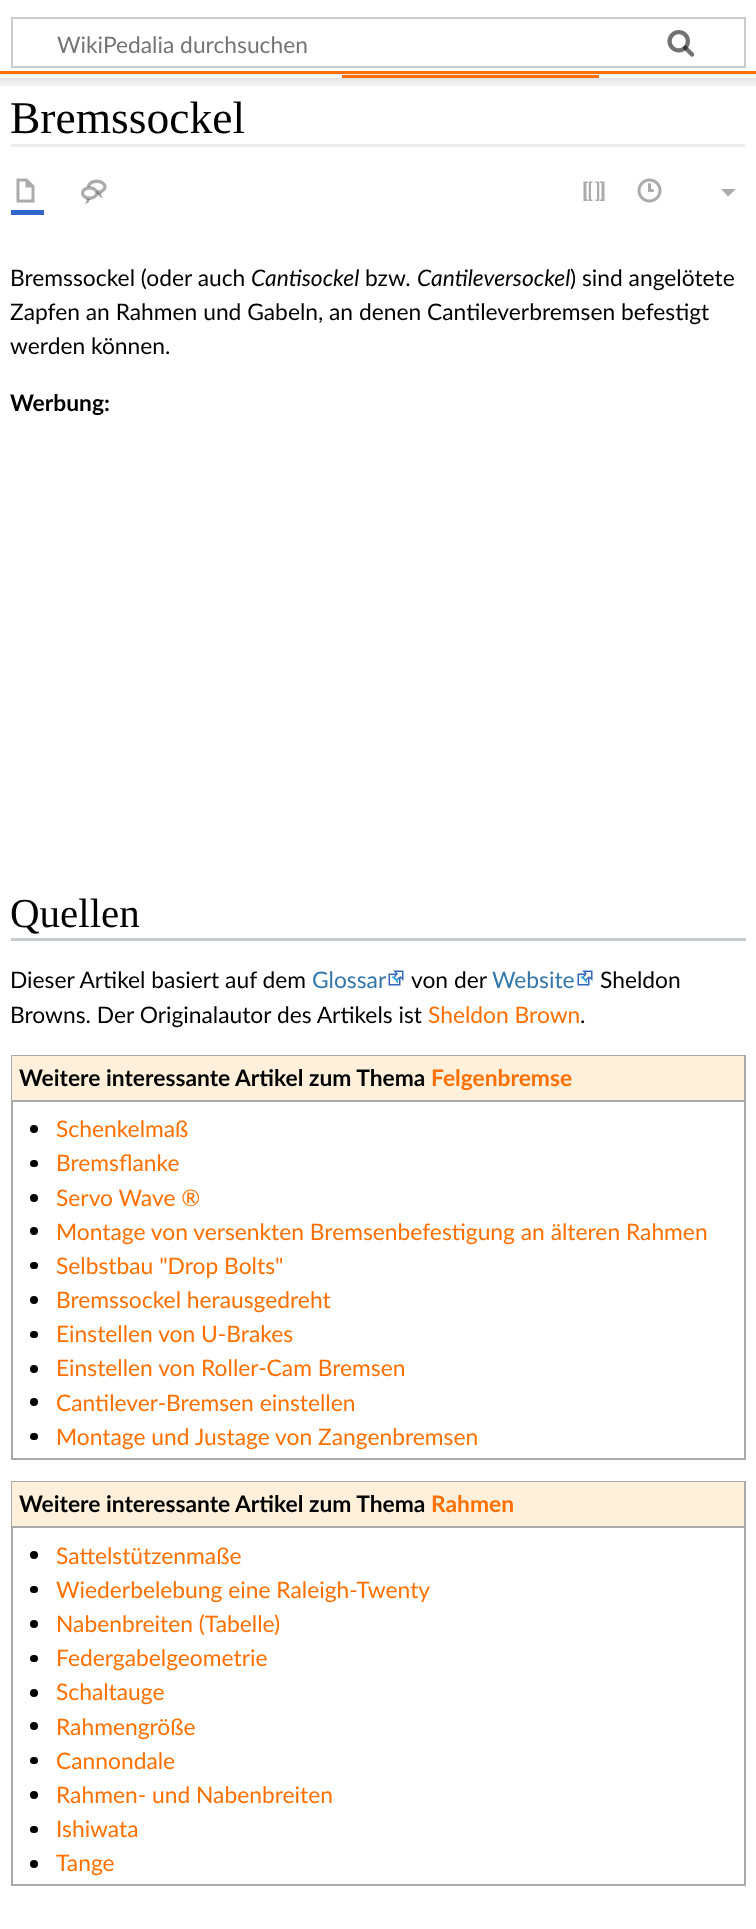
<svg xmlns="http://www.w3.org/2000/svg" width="756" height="1929">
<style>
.a{font:22.8px Lato;fill:#757575}
.b{font:45.5px Liberation Serif;fill:#000}
.c{font:22.8px Lato;fill:#000}
.d{font:italic 22.8px Lato;fill:#000}
.e{font:bold 22.8px Lato;fill:#000}
.f{font:41px Liberation Serif;fill:#000}
.g{font:22.8px Lato;fill:#37a}
.h{font:22.8px Lato;fill:#ff7000}
.i{font:bold 22.8px Lato;fill:#ff7000}
</style>
<defs>
<clipPath id="clip1"><path d="M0 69h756v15h-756zm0 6h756v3h-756z" clip-rule="evenodd"/></clipPath>
<clipPath id="clip2"><path d="M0 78h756v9H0z"/></clipPath>
</defs>
<rect width="100%" height="100%" fill="#fff"/>
<path fill="none" stroke="#c8ccd1" stroke-width="2" d="M12 18h733v49H12z"/>
<image href="1.png" x="667" y="30" width="28" height="27"/>
<image href="2.png" x="667" y="30" width="28" height="27"/>
<g clip-path="url(#clip1)">
<path fill="#00000033" filter="blur(1.5px)" d="M0 75h756v3H0z"/>
</g>
<g clip-path="url(#clip2)">
<path fill="#00000012" filter="blur(2px)" d="M-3 77h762v9H-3z"/>
</g>
<path fill="#ff7000" d="M0 71h756v3H0z"/>
<path fill="#ff7000" d="M342 75h257v3H342z"/>
<path fill="#eee" d="M11 144h735v3H11z"/>
<path fill="#36c" d="M11 210h33v5H11z"/>
<image href="3.png" x="16" y="178" width="19" height="25"/>
<image href="4.png" x="81" y="179" width="26" height="25"/>
<image href="5.png" x="583" y="181" width="22" height="20"/>
<image href="6.png" x="637" y="178" width="25" height="25"/>
<path fill="#ababab" d="M736 189l-8 7.5l-7-7.5z"/>
<path fill="#c8ccd1" d="M11 938h735v3H11z"/>
<image href="7.png" x="388" y="970" width="16" height="16"/>
<image href="7.png" x="577" y="970" width="16" height="16"/>
<path fill="none" stroke="#aaa" stroke-width="2" d="M12 1056h733v403H12z"/>
<path fill="#fef0db" d="M12 1056h732v44H12z"/>
<path fill="#aaa" d="M12 1100h732v2H12z"/>
<circle fill="#000" cx="34" cy="1129" r="4"/>
<rect fill="#000" x="30" y="1160" width="8" height="7" rx="3.5"/>
<circle fill="#000" cx="34" cy="1198" r="4"/>
<circle fill="#000" cx="34" cy="1231" r="4"/>
<rect fill="#000" x="30" y="1262" width="8" height="7" rx="3.5"/>
<circle fill="#000" cx="34" cy="1300" r="4"/>
<rect fill="#000" x="30" y="1331" width="8" height="7" rx="3.5"/>
<circle fill="#000" cx="34" cy="1369" r="4"/>
<circle fill="#000" cx="34" cy="1402" r="4"/>
<rect fill="#000" x="30" y="1433" width="8" height="7" rx="3.5"/>
<path fill="none" stroke="#aaa" stroke-width="2" d="M12 1482h733v403H12z"/>
<path fill="#fef0db" d="M12 1482h732v44H12z"/>
<path fill="#aaa" d="M12 1526h732v2H12z"/>
<circle fill="#000" cx="34" cy="1555" r="4"/>
<rect fill="#000" x="30" y="1586" width="8" height="7" rx="3.5"/>
<circle fill="#000" cx="34" cy="1624" r="4"/>
<rect fill="#000" x="30" y="1655" width="8" height="7" rx="3.5"/>
<circle fill="#000" cx="34" cy="1693" r="4"/>
<circle fill="#000" cx="34" cy="1726" r="4"/>
<rect fill="#000" x="30" y="1757" width="8" height="7" rx="3.5"/>
<circle fill="#000" cx="34" cy="1795" r="4"/>
<rect fill="#000" x="30" y="1826" width="8" height="7" rx="3.5"/>
<circle fill="#000" cx="34" cy="1864" r="4"/>
<text class="a" x="57" y="53">WikiPedalia durchsuchen</text>
<text class="b" x="10" y="133">Bremssockel</text>
<text class="c" x="10" y="286">Bremssockel (oder auch</text>
<text class="d" x="251" y="286">Cantisockel</text>
<text class="c" x="365" y="286">bzw.</text>
<text class="d" x="417" y="286">Cantileversockel</text>
<text class="c" x="570" y="286">) sind angelötete</text>
<text class="c" x="10" y="320">Zapfen an Rahmen und Gabeln, an denen Cantileverbremsen befestigt</text>
<text class="c" x="10" y="354">werden können.</text>
<text class="e" x="10" y="411">Werbung:</text>
<text class="f" x="10" y="927">Quellen</text>
<text class="c" x="10" y="988">Dieser Artikel basiert auf dem</text>
<text class="g" x="312" y="988">Glossar</text>
<text class="c" x="411" y="988">von der</text>
<text class="g" x="492" y="988">Website</text>
<text class="c" x="600" y="988">Sheldon</text>
<text class="c" x="10" y="1023">Browns. Der Originalautor des Artikels ist</text>
<text class="h" x="428" y="1023">Sheldon Brown</text>
<text class="c" x="580" y="1023">.</text>
<text class="e" x="19" y="1086">Weitere interessante Artikel zum Thema</text>
<text class="i" x="431" y="1086">Felgenbremse</text>
<text class="h" x="56" y="1137">Schenkelmaß</text>
<text class="h" x="56" y="1171">Bremsflanke</text>
<text class="h" x="56" y="1206">Servo Wave ®</text>
<text class="h" x="56" y="1240">Montage von versenkten Bremsenbefestigung an älteren Rahmen</text>
<text class="h" x="56" y="1274">Selbstbau "Drop Bolts"</text>
<text class="h" x="56" y="1308">Bremssockel herausgedreht</text>
<text class="h" x="56" y="1342">Einstellen von U-Brakes</text>
<text class="h" x="56" y="1376">Einstellen von Roller-Cam Bremsen</text>
<text class="h" x="56" y="1411">Cantilever-Bremsen einstellen</text>
<text class="h" x="56" y="1445">Montage und Justage von Zangenbremsen</text>
<text class="e" x="19" y="1512">Weitere interessante Artikel zum Thema</text>
<text class="i" x="431" y="1512">Rahmen</text>
<text class="h" x="56" y="1564">Sattelstützenmaße</text>
<text class="h" x="56" y="1598">Wiederbelebung eine Raleigh-Twenty</text>
<text class="h" x="56" y="1632">Nabenbreiten (Tabelle)</text>
<text class="h" x="56" y="1666">Federgabelgeometrie</text>
<text class="h" x="56" y="1700">Schaltauge</text>
<text class="h" x="56" y="1735">Rahmengröße</text>
<text class="h" x="56" y="1769">Cannondale</text>
<text class="h" x="56" y="1803">Rahmen- und Nabenbreiten</text>
<text class="h" x="56" y="1837">Ishiwata</text>
<text class="h" x="56" y="1871">Tange</text>
</svg>
